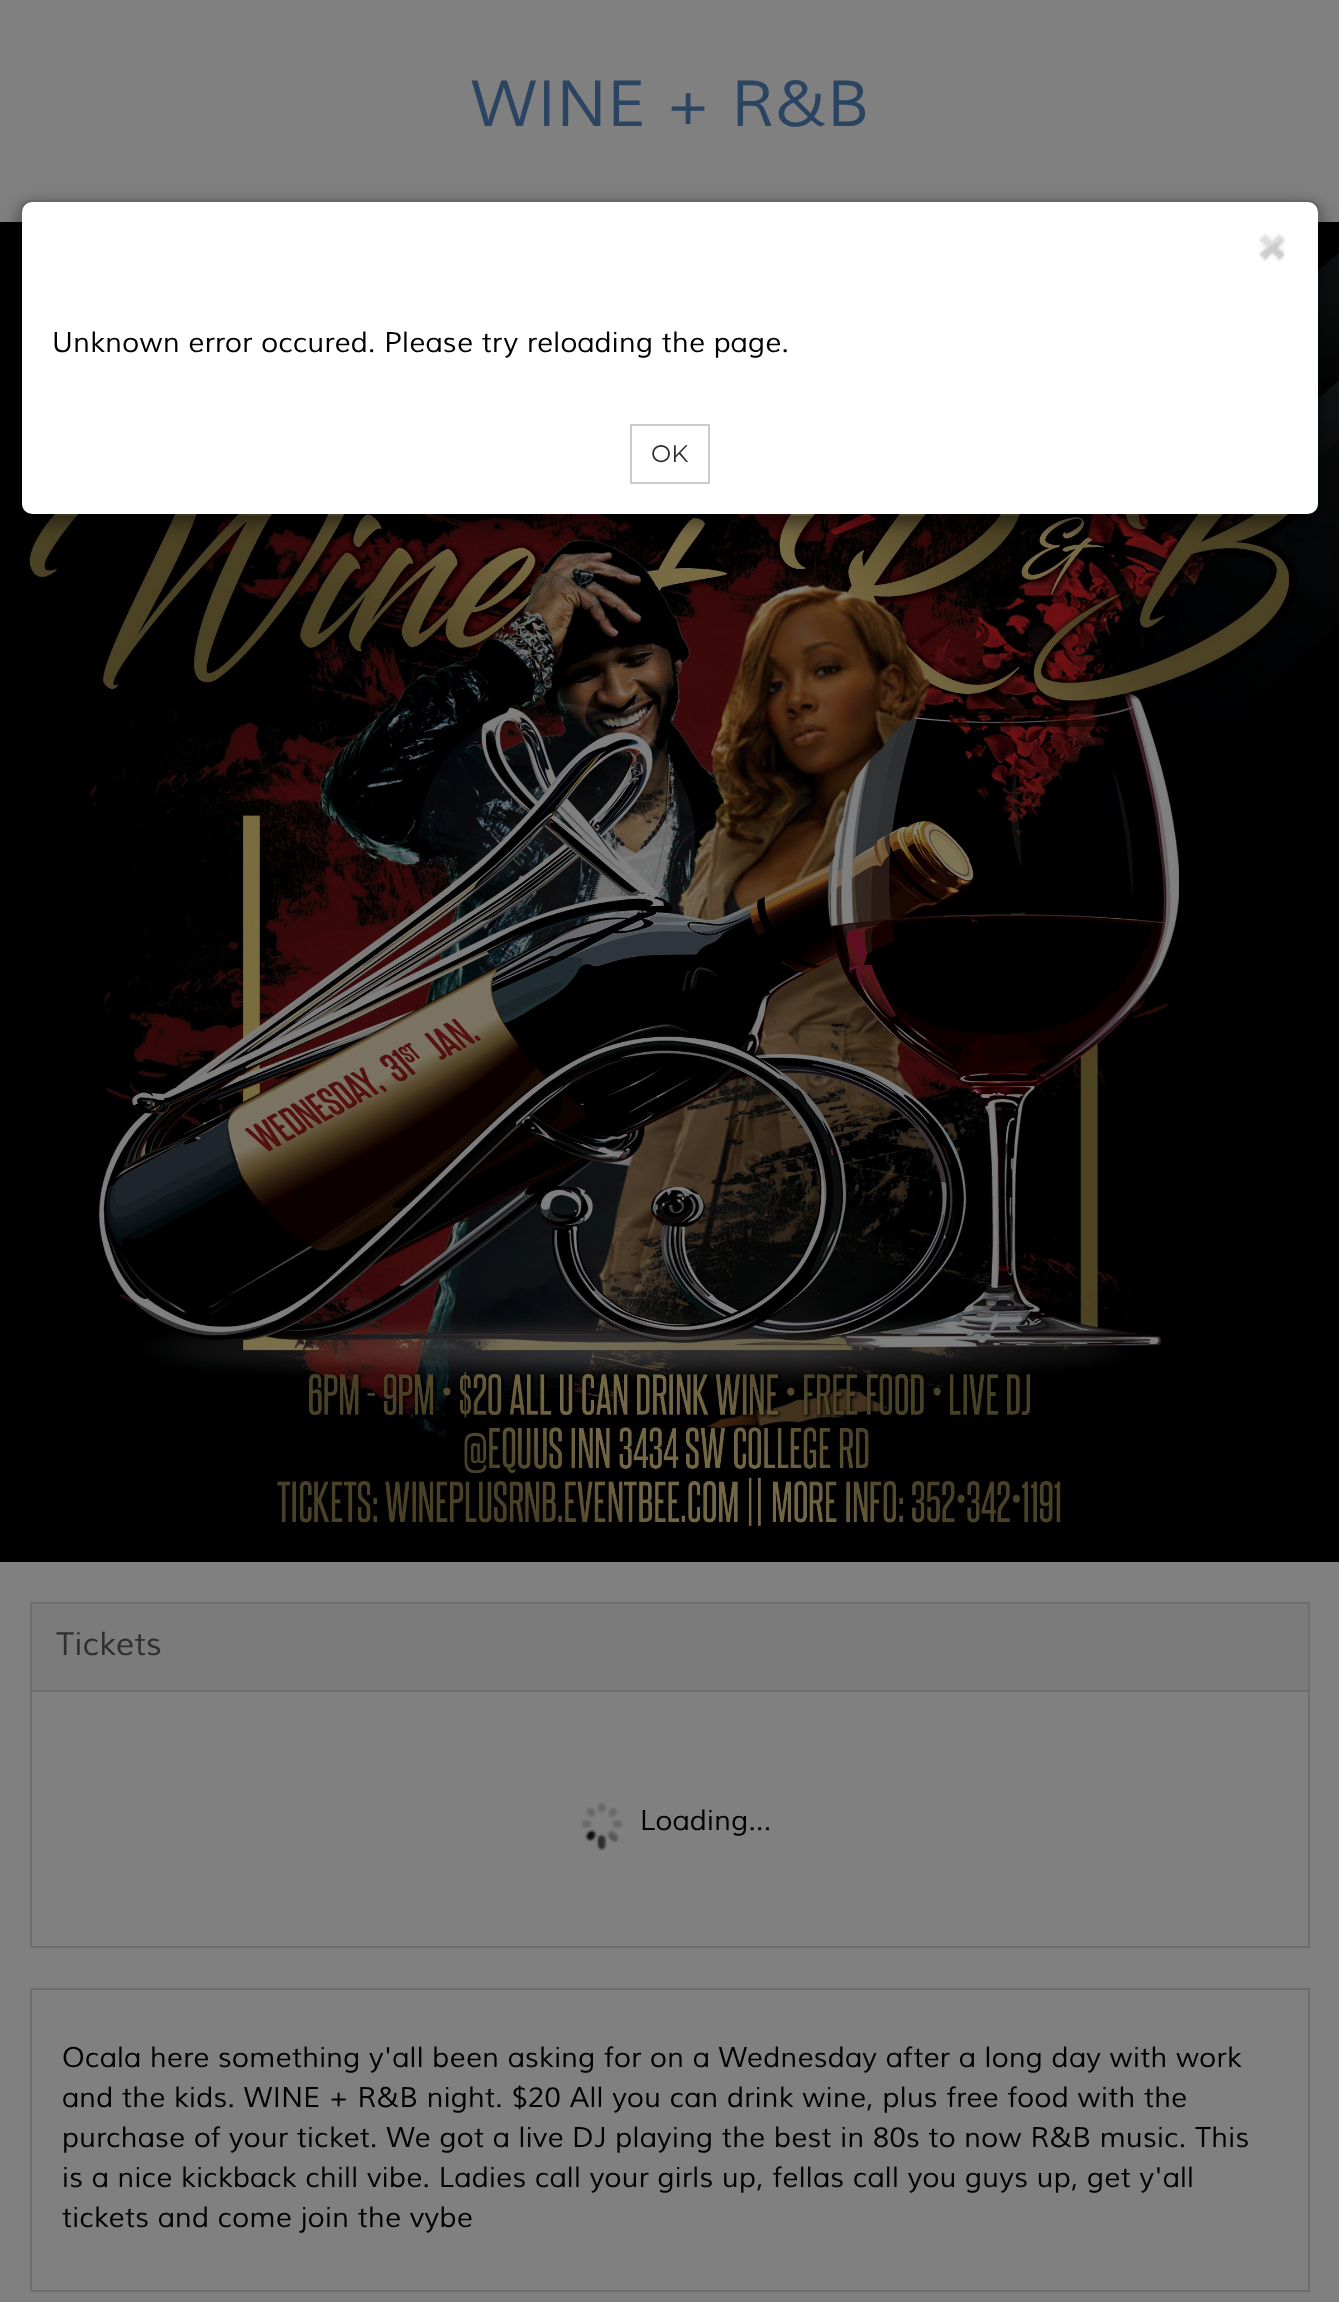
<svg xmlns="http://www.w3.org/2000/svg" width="1339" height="2302">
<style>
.a{font:italic 64px Muli;letter-spacing:0.75px;fill:#2a4462}
.b{font:italic 28px Muli;letter-spacing:0.3px;fill:#000}
.c{font:24px Montserrat;fill:#2f2f30}
.d{font:italic 32px Muli;letter-spacing:0.25px;fill:#2f2f30}
</style>
<defs>
<clipPath id="clip1"><path d="M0 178h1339v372h-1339zm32 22h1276c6.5 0 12 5.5 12 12v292c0 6.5-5.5 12-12 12h-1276c-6.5 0-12-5.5-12-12v-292c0-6.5 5.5-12 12-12z" clip-rule="evenodd"/></clipPath>
</defs>
<rect width="100%" height="100%" fill="#808080"/>
<image href="1.png" x="0" y="222" width="1339" height="1340"/>
<path fill="none" stroke="#6f6f6f" stroke-width="2" d="M31 1603h1278v344H31z"/>
<g clip-path="url(#clip1)">
<rect fill="#00000080" filter="blur(9px)" x="20" y="206" width="1300" height="316" rx="12"/>
</g>
<rect fill="#fff" x="22" y="202" width="1296" height="312" rx="10"/>
<rect fill="none" stroke="#00000033" stroke-width="2" x="21" y="201" width="1298" height="314" rx="11"/>
<image href="2.png" x="1259" y="233" width="26" height="29"/>
<path fill="none" stroke="#ccc" stroke-width="2" d="M631 425h78v58H631z"/>
<image href="3.png" x="581" y="1802" width="42" height="49"/>
<path fill="#7b7b7b" d="M32 1604h1276v86H32z"/>
<path fill="#6f6f6f" d="M32 1690h1276v2H32z"/>
<path fill="none" stroke="#6f6f6f" stroke-width="2" d="M31 1989h1278v302H31z"/>
<text class="a" x="471" y="126">WINE + R&amp;B</text>
<text class="b" x="52" y="352">Unknown error occured. Please try reloading the page.</text>
<text class="c" x="651" y="462">OK</text>
<text class="b" x="640" y="1830">Loading...</text>
<text class="d" x="56" y="1655">Tickets</text>
<text class="b" x="62" y="2067">Ocala here something y'all been asking for on a Wednesday after a long day with work</text>
<text class="b" x="62" y="2107">and the kids. WINE + R&amp;B night. $20 All you can drink wine, plus free food with the</text>
<text class="b" x="62" y="2147">purchase of your ticket. We got a live DJ playing the best in 80s to now R&amp;B music. This</text>
<text class="b" x="62" y="2187">is a nice kickback chill vibe. Ladies call your girls up, fellas call you guys up, get y'all</text>
<text class="b" x="62" y="2227">tickets and come join the vybe</text>
</svg>
